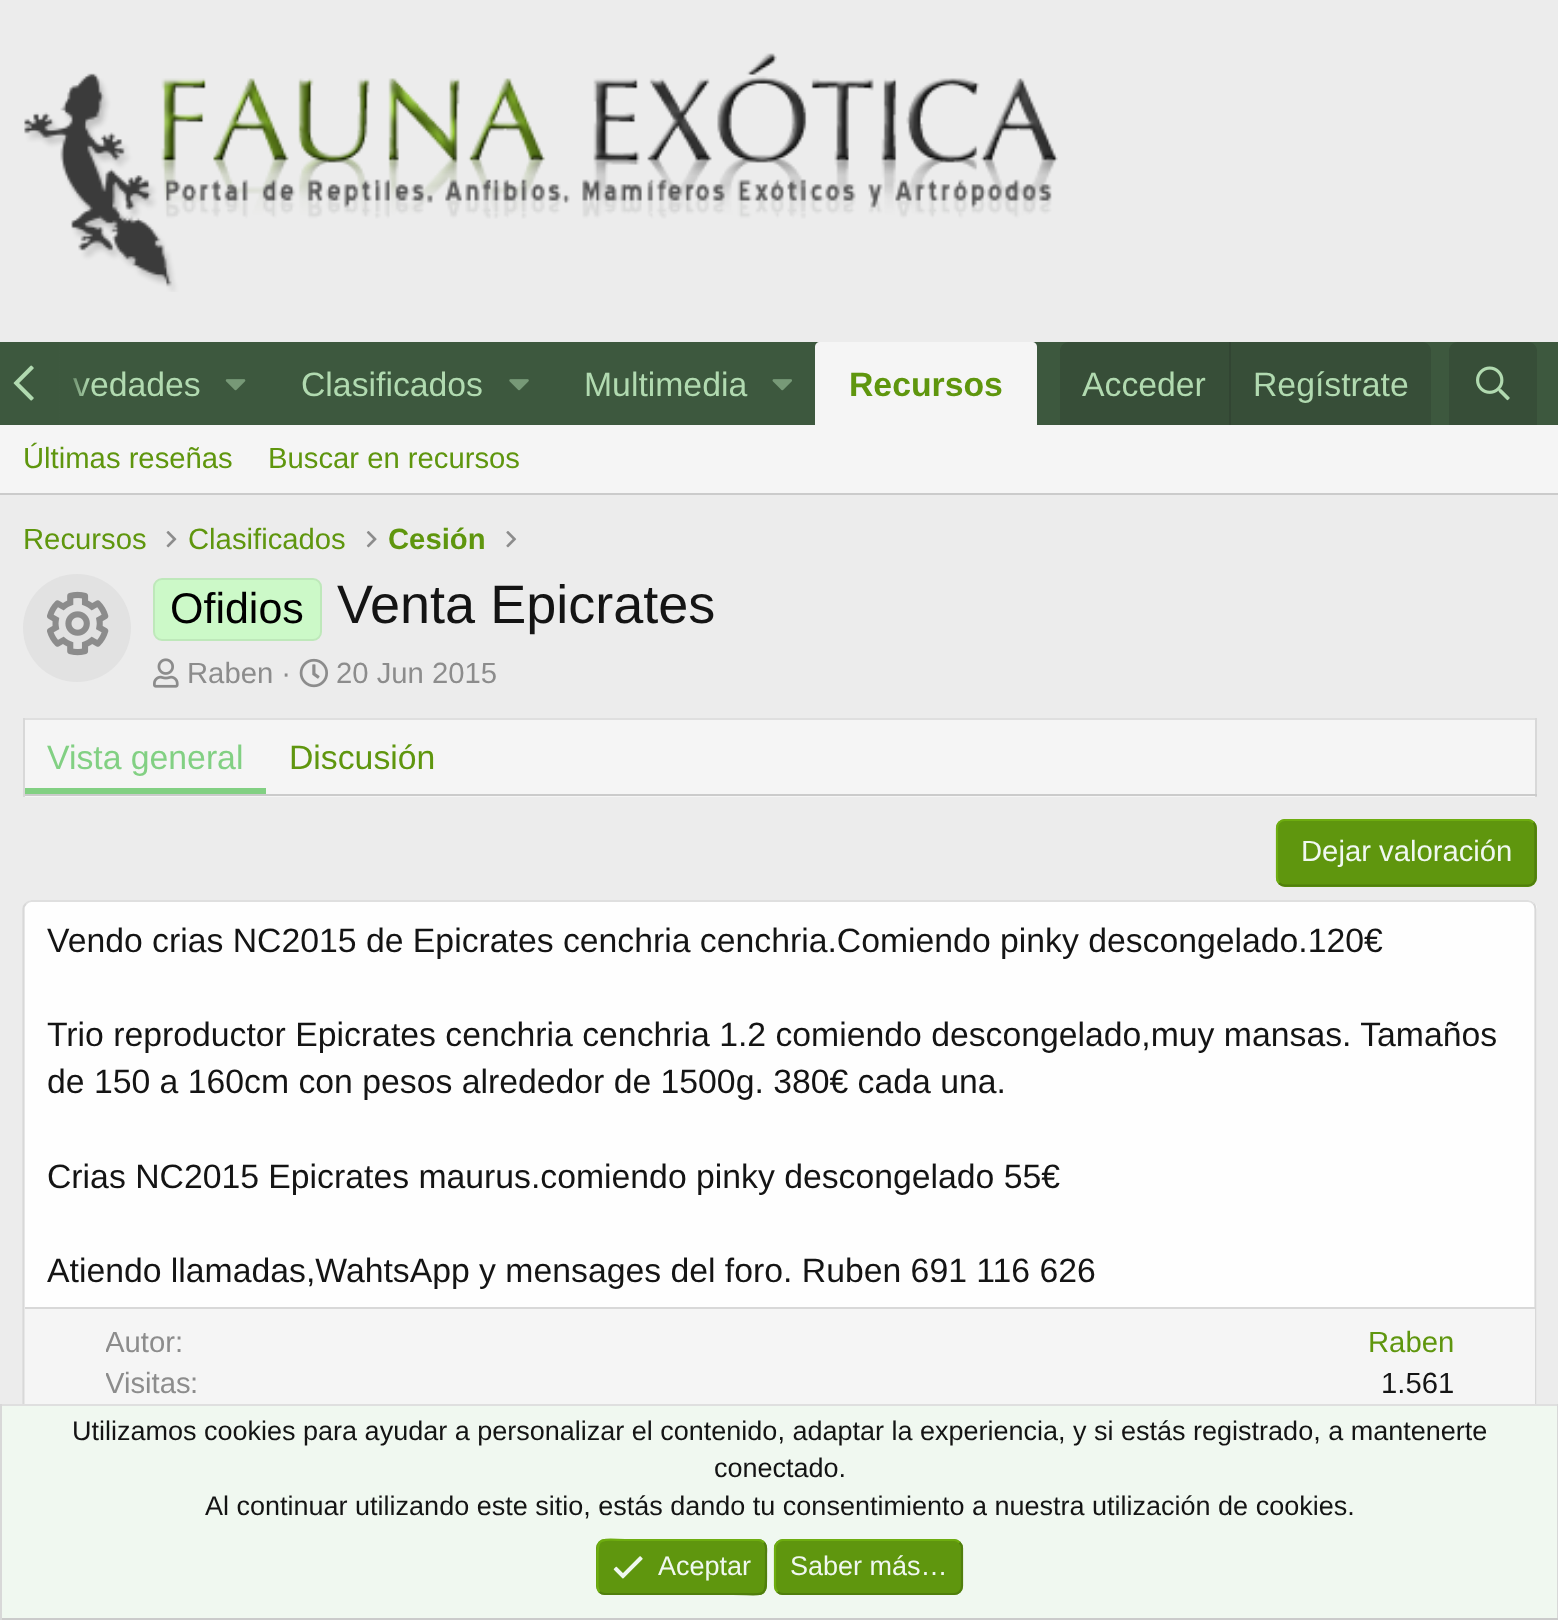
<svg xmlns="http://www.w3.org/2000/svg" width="1558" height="1620">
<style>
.a{font:33.75px Liberation Sans;fill:#b1dab0}
.b{font:bold 33.75px Liberation Sans;fill:#5f960e}
.c{font:29.25px Liberation Sans;fill:#5f960e}
.d{font:bold 29.25px Liberation Sans;fill:#5f960e}
.e{font:43px Liberation Sans;fill:#000}
.f{font:54px Liberation Sans;fill:#141414}
.g{font:29.25px Liberation Sans;fill:#8c8c8c}
.h{font:33.75px Liberation Sans;fill:#82d083}
.i{font:33.75px Liberation Sans;fill:#5f960e}
.j{font:29.25px Liberation Sans;fill:#f0f8f0}
.k{font:33.75px Liberation Sans;fill:#141414}
.l{font:29.25px Liberation Sans;fill:#141414}
.m{font:27px Liberation Sans;fill:#141414}
.n{font:27px Liberation Sans;fill:#f0f8f0}
</style>
<defs>
<linearGradient id="g1" gradientUnits="userSpaceOnUse" x1="0" y1="384" x2="90" y2="384"><stop offset="0.66" stop-color="#3d583e"/><stop offset="1" stop-color="#3d583e" stop-opacity="0"/></linearGradient>
<clipPath id="clip1"><path d="M106 1323h1350v41H106z"/></clipPath>
<clipPath id="clip2"><path d="M106 1364h1350v40H106z"/></clipPath>
</defs>
<rect width="100%" height="100%" fill="#ececec"/>
<image href="1.png" x="24" y="53" width="1034" height="239"/>
<path fill="#3d583e" d="M60 342h1498v83H60z"/>
<image href="3.png" x="225" y="379" width="21" height="12"/>
<image href="4.png" x="509" y="379" width="20" height="12"/>
<image href="5.png" x="772" y="379" width="20" height="12"/>
<path fill="#f5f5f5" d="M820 342h212c3 0 5 2 5 5v78h-222v-78c0-3 2-5 5-5z"/>
<path fill="#374e38" d="M1069 342h353c5 0 9 4 9 9v74h-371v-74c0-5 4-9 9-9z"/>
<path fill="#324533" d="M1229 342h2v83H1229z"/>
<path fill="#374e38" d="M1458 342h70c5 0 9 4 9 9v74h-88v-74c0-5 4-9 9-9z"/>
<image href="6.png" x="1476" y="366" width="34" height="35"/>
<path fill="#f5f5f5" d="M0 425h1558v68H0z"/>
<path fill="#cbcbcb" d="M0 493h1558v2H0z"/>
<image href="7.png" x="166" y="531" width="11" height="17"/>
<image href="8.png" x="366" y="531" width="11" height="17"/>
<image href="9.png" x="506" y="531" width="11" height="17"/>
<circle fill="#e2e2e2" cx="77" cy="628" r="54"/>
<image href="10.png" x="47" y="591" width="62" height="65"/>
<rect fill="#ccf9c8" stroke="#bee8ba" stroke-width="2" x="154" y="579" width="167" height="61" rx="8"/>
<image href="11.png" x="153" y="658" width="26" height="30"/>
<image href="12.png" x="299" y="658" width="29" height="30"/>
<path fill="#f5f5f5" d="M25 720h1510v77H25z"/>
<path fill="#dfdfdf" d="M23 718h1514v2H23z"/>
<path fill="#d8d8d8" d="M1535 718h2v79H1535z"/>
<path fill="#cbcbcb" d="M23 794h1514v2H23z"/>
<path fill="#d8d8d8" d="M23 718h2v79H23z"/>
<path fill="#82d083" d="M25 788h241v6H25z"/>
<rect fill="#5f960e" x="1276" y="819" width="261" height="68" rx="9"/>
<path fill="none" stroke="#507f0c" stroke-width="2.2" d="M1533.5 822.5c1.5 1.5 2 3.5 2 5.5v49.5c0 2-.5 4-2 5.5c-1.5 1.5-3.5 2.5-5.5 2.5h-243c-2.5 0-4.5-1-6-2.5"/>
<path fill="none" stroke="#6ead10" stroke-width="2.2" d="M1279 883c-1.5-1.5-2-3.5-2-5.5v-49.5c0-2 .5-4 2-5.5c1.5-1.5 3.5-2.5 6-2.5h243c2 0 4 1 5.5 2.5"/>
<rect fill="#fefefe" x="23" y="900" width="1514" height="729" rx="9"/>
<path fill="none" stroke="#dfdfdf" stroke-width="2.2" d="M26 903.5c1.5-1.5 3.5-2.5 5.5-2.5h1496.5c2 0 4 1 5.5 2.5"/>
<path fill="none" stroke="#d8d8d8" stroke-width="2.2" d="M1533.5 903.5c1.5 1.5 2 3.5 2 5.5v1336.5c0 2-.5 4-2 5.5"/>
<path fill="none" stroke="#d8d8d8" stroke-width="2.2" d="M26 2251c-1.5-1.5-2.5-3.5-2.5-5.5v-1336.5c0-2 1-4 2.5-5.5"/>
<path fill="#f5f5f5" d="M25 1309h1510v95H25z"/>
<path fill="#d8d8d8" d="M25 1307h1510v2H25z"/>
<path fill="#f0f8f0" d="M2 1406h1555v212H2z"/>
<path fill="#dfdfdf" d="M0 1404h1558v2H0z"/>
<path fill="#d8d8d8" d="M1557 1404h1v216H1557z"/>
<path fill="#cbcbcb" d="M0 1618h1558v2H0z"/>
<path fill="#d8d8d8" d="M0 1404h2v216H0z"/>
<rect fill="#5f960e" x="596" y="1539" width="171" height="56" rx="9"/>
<path fill="none" stroke="#507f0c" stroke-width="2.2" d="M764 1542.5c3 3 2 8 2 12v12.5c0 32.5 2.5 27-33 27h-128c-2 0-4-.5-5.5-2"/>
<path fill="none" stroke="#6ead10" stroke-width="2.2" d="M599.5 1592c-3-3.5-2-8-2-12v-13c0-32.5-2.5-27 33.5-27h127c2.5 0 4.5 1 6 2.5"/>
<image href="13.png" x="613" y="1556" width="30" height="23"/>
<rect fill="#5f960e" x="774" y="1539" width="189" height="56" rx="9"/>
<path fill="none" stroke="#507f0c" stroke-width="2.2" d="M959.5 1542.5c1.5 1.5 2.5 3.5 2.5 5.5v38c0 2.5-1 4.5-2.5 6c-1.5 1.5-3.5 2-5.5 2h-171c-2 0-4-.5-5.5-2"/>
<path fill="none" stroke="#6ead10" stroke-width="2.2" d="M777.5 1592c-1.5-1.5-2.5-3.5-2.5-6v-38c0-2 1-4 2.5-5.5c1.5-1.5 3.5-2.5 5.5-2.5h171c2 0 4 1 5.5 2.5"/>
<text class="a" x="73" y="396">vedades</text>
<path fill="url(#g1)" d="M0 342h89v83H0z"/>
<image href="2.png" x="13" y="365" width="21" height="36"/>
<text class="a" x="301" y="396">Clasificados</text>
<text class="a" x="584" y="396">Multimedia</text>
<text class="b" x="849" y="396">Recursos</text>
<text class="a" x="1082" y="396">Acceder</text>
<text class="a" x="1253" y="396">Regístrate</text>
<text class="c" x="23" y="468">Últimas reseñas</text>
<text class="c" x="268" y="468">Buscar en recursos</text>
<text class="c" x="23" y="549">Recursos</text>
<text class="c" x="188" y="549">Clasificados</text>
<text class="d" x="388" y="549">Cesión</text>
<text class="e" x="170" y="623">Ofidios</text>
<text class="f" x="337" y="623">Venta Epicrates</text>
<text class="g" x="187" y="683">Raben ·</text>
<text class="g" x="336" y="683">20 Jun 2015</text>
<text class="h" x="47" y="769">Vista general</text>
<text class="i" x="289" y="769">Discusión</text>
<text class="j" x="1301" y="861">Dejar valoración</text>
<text class="k" x="47" y="952">Vendo crias NC2015 de Epicrates cenchria cenchria.Comiendo pinky descongelado.120€</text>
<text class="k" x="47" y="1046">Trio reproductor Epicrates cenchria cenchria 1.2 comiendo descongelado,muy mansas. Tamaños</text>
<text class="k" x="47" y="1093">de 150 a 160cm con pesos alrededor de 1500g. 380€ cada una.</text>
<text class="k" x="47" y="1188">Crias NC2015 Epicrates maurus.comiendo pinky descongelado 55€</text>
<text class="k" x="47" y="1282">Atiendo llamadas,WahtsApp y mensages del foro. Ruben 691 116 626</text>
<g clip-path="url(#clip1)">
<text class="g" x="105" y="1352">Autor</text>
</g>
<text class="g" x="175" y="1352">:</text>
<text class="c" x="1368" y="1352">Raben</text>
<g clip-path="url(#clip2)">
<text class="g" x="105" y="1393">Visitas</text>
</g>
<text class="g" x="190" y="1393">:</text>
<text class="l" x="1381" y="1393">1.561</text>
<text class="m" x="72" y="1440">Utilizamos cookies para ayudar a personalizar el contenido, adaptar la experiencia, y si estás registrado, a mantenerte</text>
<text class="m" x="714" y="1477">conectado.</text>
<text class="m" x="205" y="1515">Al continuar utilizando este sitio, estás dando tu consentimiento a nuestra utilización de cookies.</text>
<text class="n" x="658" y="1575">Aceptar</text>
<text class="n" x="790" y="1575">Saber más…</text>
</svg>
